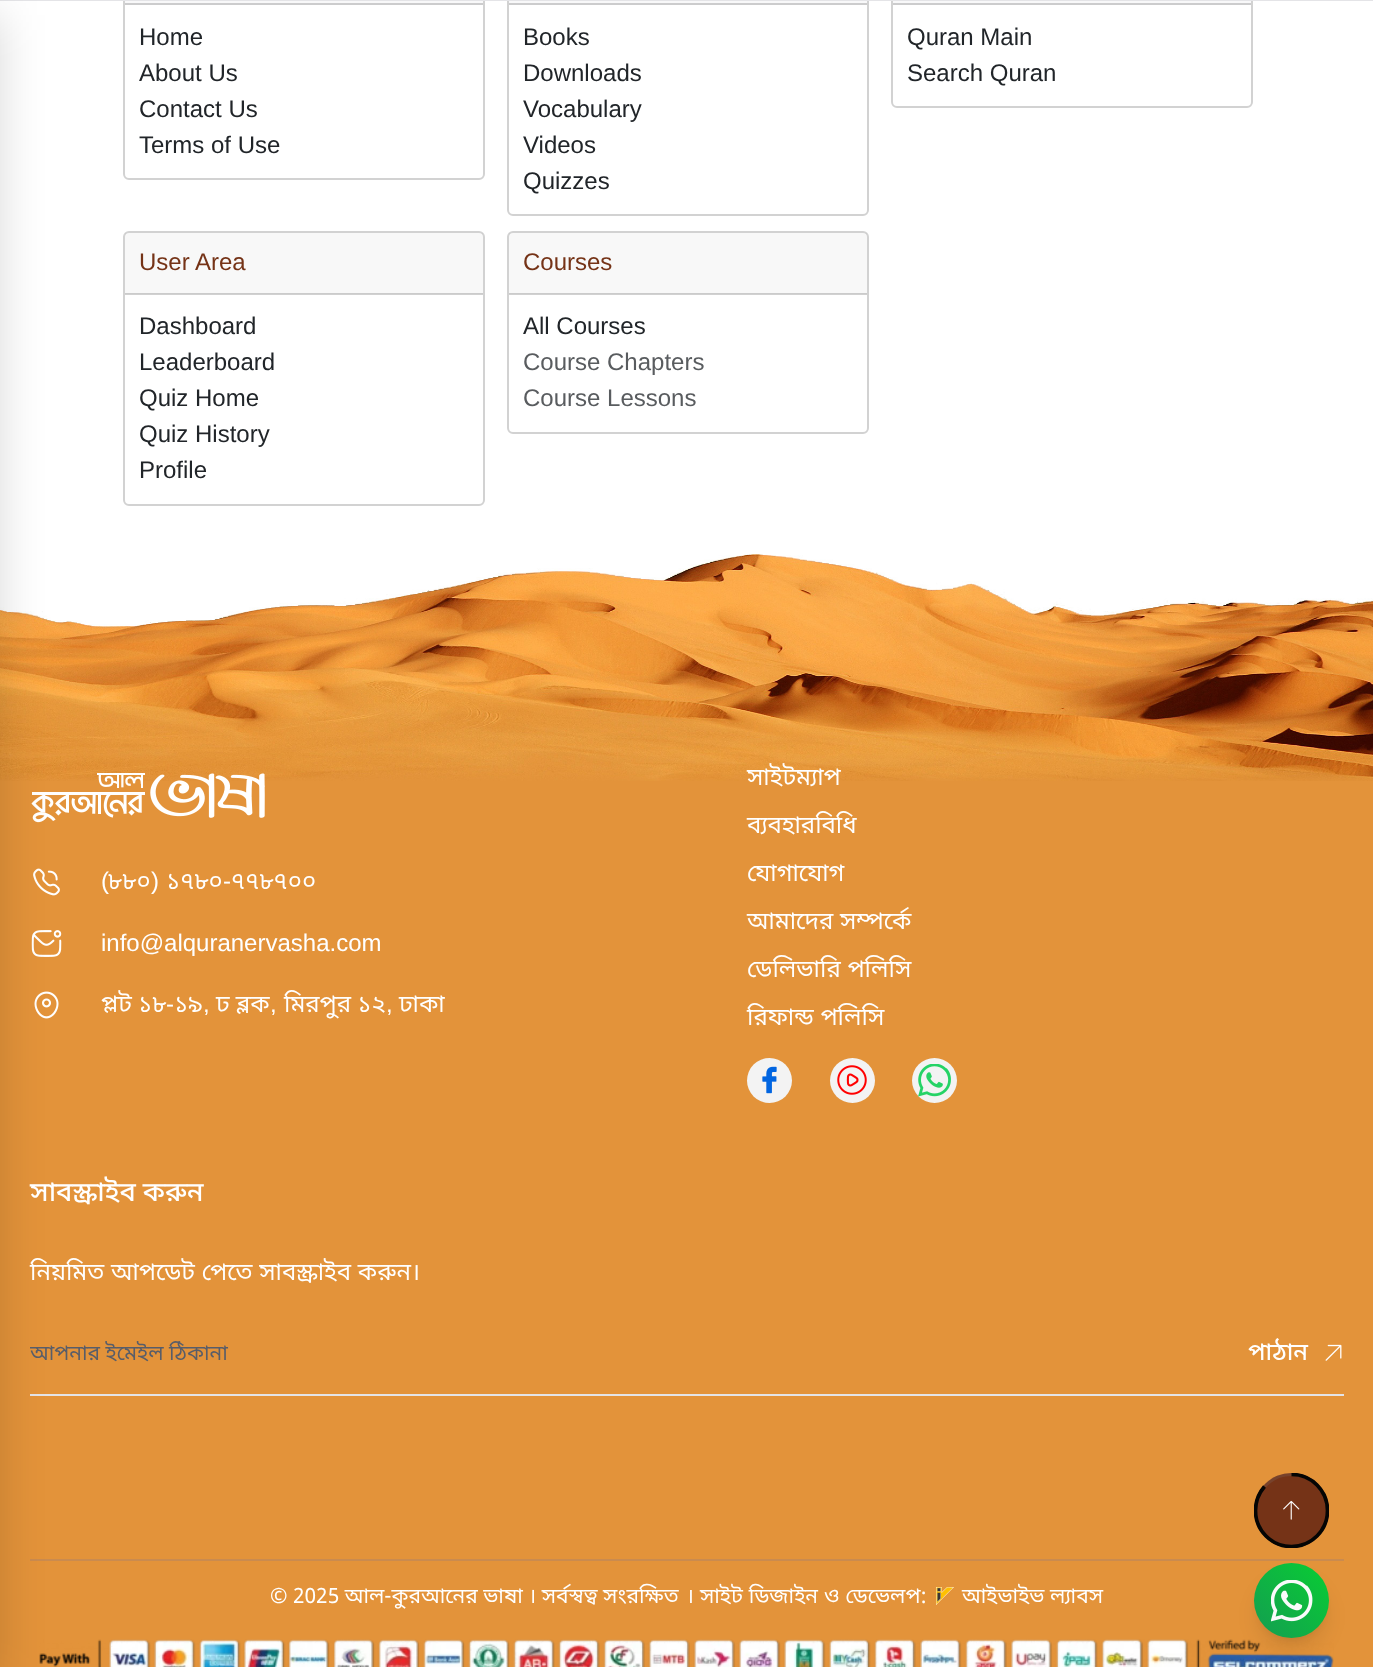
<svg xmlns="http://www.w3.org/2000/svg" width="1373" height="1667">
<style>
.a{font:24px Liberation Sans;fill:#212529}
.b{font:24px Liberation Sans;fill:#753317}
.c{font:24px Liberation Sans;fill:#595c5f}
.d{font:24px Liberation Sans;fill:#fff}
.e{font:24px Noto Sans Bengali;fill:#fff}
.f{font:500 27px Noto Sans Bengali;fill:#fff}
.g{font:21px Noto Sans Bengali;fill:#585d69}
.h{font:500 24px Noto Sans Bengali;fill:#fff}
.i{font:21px Noto Sans Bengali;fill:#fff}
</style>
<defs>
<clipPath id="clip1"><path d="M1254 1473h75v75H1254z"/></clipPath>
<linearGradient id="g1" gradientUnits="userSpaceOnUse" x1="1330" y1="1564" x2="1252" y2="1638"><stop offset="0" stop-color="#08ce33"/><stop offset="1" stop-color="#149c52"/></linearGradient>
<clipPath id="clip2"><path d="M30 1341h1209v29H30z"/></clipPath>
</defs>
<rect width="100%" height="100%" fill="#fff"/>
<rect fill="none" stroke="#d2d2d2" stroke-width="2" x="124" y="-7" width="360" height="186" rx="5"/>
<rect fill="none" stroke="#d2d2d2" stroke-width="2" x="508" y="-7" width="360" height="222" rx="5"/>
<rect fill="none" stroke="#d2d2d2" stroke-width="2" x="892" y="-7" width="360" height="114" rx="5"/>
<path fill="#e4e4e7" d="M0 0h1373v1H0z"/>
<image href="1.png" x="0" y="554" width="1373" height="227"/>
<path fill="#e3933a" d="M0 781h1373v886H0z"/>
<image href="2.png" x="31" y="773" width="234" height="50"/>
<image href="3.png" x="33" y="868" width="27" height="28"/>
<image href="4.png" x="31" y="930" width="31" height="27"/>
<image href="5.png" x="34" y="991" width="25" height="28"/>
<path fill="#e4e4e7" d="M30 1394h1314v2H30z"/>
<path fill="#ca8b4f" d="M30 1559h1314v2H30z"/>
<image href="11.png" x="39" y="1639" width="1295" height="28"/>
<path fill="#00000026" filter="blur(22.5px)" d="M-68 15h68v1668H-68z"/>
<path fill="#f8f8f9" d="M125 1h358v2H125z"/>
<path fill="#cccccd" d="M125 3h358v2H125z"/>
<path fill="#f8f8f9" d="M509 1h358v2H509z"/>
<path fill="#cccccd" d="M509 3h358v2H509z"/>
<path fill="#f8f8f9" d="M893 1h358v2H893z"/>
<path fill="#cccccd" d="M893 3h358v2H893z"/>
<rect fill="none" stroke="#d2d2d2" stroke-width="2" x="124" y="232" width="360" height="273" rx="5"/>
<path fill="#21252908" d="M125 233h358v61H125z"/>
<path fill="#0000002e" d="M125 293h358v2H125z"/>
<rect fill="none" stroke="#d2d2d2" stroke-width="2" x="508" y="232" width="360" height="201" rx="5"/>
<path fill="#21252908" d="M509 233h358v61H509z"/>
<path fill="#0000002e" d="M509 293h358v2H509z"/>
<circle fill="#f3f3f3" cx="769.5" cy="1080.5" r="22.5"/>
<image href="6.png" x="762" y="1066" width="15" height="28"/>
<circle fill="#f3f3f3" cx="852.5" cy="1080.5" r="22.5"/>
<image href="7.png" x="837" y="1065" width="30" height="30"/>
<circle fill="#f3f3f3" cx="934.5" cy="1080.5" r="22.5"/>
<image href="8.png" x="918" y="1064" width="33" height="33"/>
<image href="9.png" x="1325" y="1344" width="17" height="17"/>
<image href="10.png" x="936" y="1587" width="18" height="18"/>
<circle fill="#753317" cx="1291.5" cy="1510.5" r="37.5"/>
<circle fill="none" stroke="#82828233" stroke-width="3" cx="1291.5" cy="1510.5" r="36"/>
<g clip-path="url(#clip1)">
<path fill="none" stroke="#050504" stroke-width="3.7" d="M1291.5 1474.5c20 0 36 16 36 36c0 20-16 36-36 36c-20 0-36-16-36-36c0-9 3.5-17.5 9-24"/>
</g>
<image href="12.png" x="1283" y="1500" width="17" height="20"/>
<rect fill="#0000001a" filter="blur(4.5px)" x="1260" y="1575" width="63" height="63" rx="31.5"/>
<rect fill="#0000001a" filter="blur(11px)" x="1259" y="1583" width="66" height="66" rx="33"/>
<circle fill="url(#g1)" cx="1291.5" cy="1600.5" r="37.5"/>
<image href="13.png" x="1271" y="1580" width="42" height="42"/>
<text class="a" x="139" y="45">Home</text>
<text class="a" x="139" y="81">About Us</text>
<text class="a" x="139" y="117">Contact Us</text>
<text class="a" x="139" y="153">Terms of Use</text>
<text class="a" x="523" y="45">Books</text>
<text class="a" x="523" y="81">Downloads</text>
<text class="a" x="523" y="117">Vocabulary</text>
<text class="a" x="523" y="153">Videos</text>
<text class="a" x="523" y="189">Quizzes</text>
<text class="a" x="907" y="45">Quran Main</text>
<text class="a" x="907" y="81">Search Quran</text>
<text class="b" x="139" y="270">User Area</text>
<text class="a" x="139" y="334">Dashboard</text>
<text class="a" x="139" y="370">Leaderboard</text>
<text class="a" x="139" y="406">Quiz Home</text>
<text class="a" x="139" y="442">Quiz History</text>
<text class="a" x="139" y="478">Profile</text>
<text class="b" x="523" y="270">Courses</text>
<text class="a" x="523" y="334">All Courses</text>
<text class="c" x="523" y="370">Course Chapters</text>
<text class="c" x="523" y="406">Course Lessons</text>
<text class="d" x="101" y="889">(</text>
<text class="e" x="108" y="889">৮৮০</text>
<text class="d" x="151" y="889">)</text>
<text class="e" x="166" y="889">১৭৮০</text>
<text class="d" x="223" y="889">-</text>
<text class="e" x="231" y="889">৭৭৮৭০০</text>
<text class="d" x="101" y="951">info@alquranervasha.com</text>
<text class="e" x="101" y="1012">প্লট ১৮</text>
<text class="d" x="166" y="1012">-</text>
<text class="e" x="174" y="1012">১৯</text>
<text class="e" x="216" y="1012">ঢ ব্লক</text>
<text class="e" x="284" y="1012">মিরপুর ১২</text>
<text class="e" x="399" y="1012">ঢাকা</text>
<text class="d" x="203" y="1012">,</text>
<text class="d" x="270" y="1012">,</text>
<text class="d" x="386" y="1012">,</text>
<text class="e" x="747" y="785">সাইটম্যাপ</text>
<text class="e" x="747" y="833">ব্যবহারবিধি</text>
<text class="e" x="747" y="881">যোগাযোগ</text>
<text class="e" x="747" y="929" word-spacing="0.5">আমাদের সম্পর্কে</text>
<text class="e" x="747" y="977" word-spacing="0.5">ডেলিভারি পলিসি</text>
<text class="e" x="747" y="1025" word-spacing="0.5">রিফান্ড পলিসি</text>
<text class="f" x="30" y="1201">সাবস্ক্রাইব করুন</text>
<text class="e" x="30" y="1280" word-spacing="0.5">নিয়মিত আপডেট পেতে সাবস্ক্রাইব করুন।</text>
<g clip-path="url(#clip2)">
<text class="g" x="30" y="1360">আপনার ইমেইল ঠিকানা</text>
</g>
<text class="h" x="1248" y="1360">পাঠান</text>
<text class="i" x="270" y="1603">© 2025 আল-কুরআনের ভাষা । সর্বস্বত্ব সংরক্ষিত</text>
<text class="i" x="686" y="1603" word-spacing="0.5">। সাইট ডিজাইন ও ডেভেলপ:</text>
<text class="i" x="962" y="1603">আইভাইভ ল্যাবস</text>
</svg>
